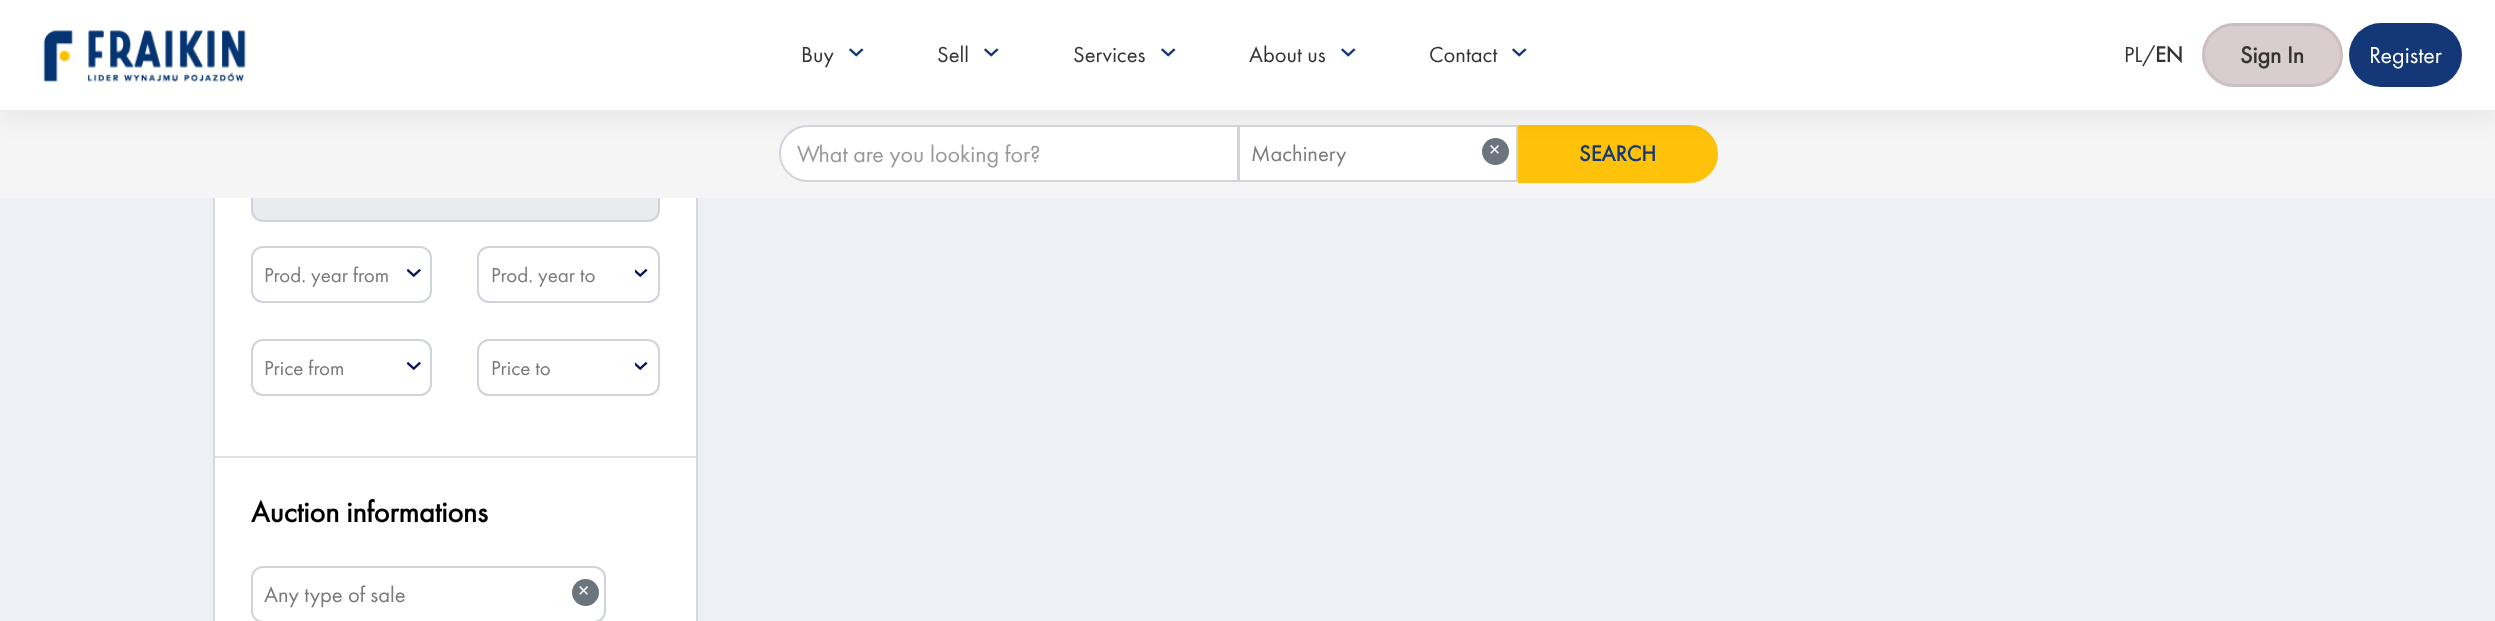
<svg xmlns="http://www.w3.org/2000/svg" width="2495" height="621">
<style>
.a{font:22.5px Futura PT;fill:#333}
.b{font:bold 22.5px Futura PT;fill:#333}
.c{font:bold 24px Futura PT;fill:#333}
.d{font:24px Futura PT;fill:#fff}
.e{font:24px Futura PT;fill:#999}
.f{font:22.5px Futura PT;fill:#7a7a7a}
.g{font:22.5px Futura PT;fill:#f8f9fa}
.h{font:bold 22.5px Futura PT;fill:#143778}
.i{font:21px Futura PT;fill:#7a7a7a}
.j{font:bold 30px Futura PT;fill:#000}
</style>
<rect width="100%" height="100%" fill="#edf0f4"/>
<path fill="#fff" d="M215 198h481v423H215z"/>
<path fill="none" stroke="#d9d9d9" stroke-width="2" d="M214 -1h483v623H214z"/>
<rect fill="#e9ecef" stroke="#ced4da" stroke-width="2" x="252" y="166" width="407" height="55" rx="11"/>
<path fill="#f5f5f5" d="M0 110h2495v88H0z"/>
<path fill="#fdc209" stroke="#fdc209" stroke-width="2" d="M1519 126h170c15.5 0 28 12.5 28 28c0 15.5-12.5 28-28 28h-170z"/>
<path fill="#00000014" filter="blur(15px)" d="M-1 0h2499v113H-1z"/>
<path fill="#fff" d="M0 0h2495v110H0z"/>
<image href="1.png" x="43" y="30" width="203" height="52"/>
<image href="2.png" x="849" y="48" width="15" height="9"/>
<image href="2.png" x="984" y="48" width="15" height="9"/>
<image href="2.png" x="1161" y="48" width="15" height="9"/>
<image href="2.png" x="1341" y="48" width="15" height="9"/>
<image href="2.png" x="1512" y="48" width="15" height="9"/>
<rect fill="#d8cdcf" stroke="#cdbfc1" stroke-width="3" x="2203.5" y="24.5" width="138" height="61" rx="30.5"/>
<rect fill="#143778" x="2349" y="23" width="113" height="64" rx="32"/>
<path fill="#fff" stroke="#ced4da" stroke-width="2" d="M807.5 126h430.5v55h-430.5c-15 0-27.5-12.5-27.5-27.5c0-15 12.5-27.5 27.5-27.5z"/>
<path fill="#fff" stroke="#ced4da" stroke-width="2" d="M1239 126h278v55H1239z"/>
<circle fill="#6c757d" cx="1495.5" cy="151.5" r="13.5"/>
<path fill="#dee2e6" d="M215 456h481v2H215z"/>
<rect fill="none" stroke="#ced4da" stroke-width="2" x="252" y="247" width="179" height="55" rx="11"/>
<image href="3.png" x="407" y="268" width="14" height="10"/>
<rect fill="none" stroke="#ced4da" stroke-width="2" x="478" y="247" width="181" height="55" rx="11"/>
<image href="4.png" x="635" y="268" width="13" height="10"/>
<rect fill="none" stroke="#ced4da" stroke-width="2" x="252" y="340" width="179" height="55" rx="11"/>
<image href="3.png" x="407" y="361" width="14" height="10"/>
<rect fill="none" stroke="#ced4da" stroke-width="2" x="478" y="340" width="181" height="55" rx="11"/>
<image href="4.png" x="635" y="361" width="13" height="10"/>
<rect fill="none" stroke="#ced4da" stroke-width="2" x="252" y="567" width="353" height="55" rx="11"/>
<circle fill="#6c757d" cx="585.5" cy="592.5" r="13.5"/>
<text class="a" x="801" y="62">Buy</text>
<text class="a" x="937" y="62">Sell</text>
<text class="a" x="1073" y="62">Services</text>
<text class="a" x="1249" y="62">About us</text>
<text class="a" x="1429" y="62">Contact</text>
<text class="a" x="2124" y="62">PL/</text>
<text class="b" x="2155" y="62">EN</text>
<text class="c" x="2240" y="63">Sign In</text>
<text class="d" x="2369" y="63">Register</text>
<text class="e" x="797" y="162">What are you looking for?</text>
<text class="f" x="1251" y="161">Machinery</text>
<text class="g" x="1489" y="157">×</text>
<text class="h" x="1579" y="161">SEARCH</text>
<text class="i" x="264" y="282">Prod. year from</text>
<text class="i" x="491" y="282">Prod. year to</text>
<text class="i" x="264" y="375">Price from</text>
<text class="i" x="491" y="375">Price to</text>
<text class="j" x="251" y="522">Auction informations</text>
<text class="f" x="264" y="602">Any type of sale</text>
<text class="g" x="578" y="598">×</text>
</svg>
